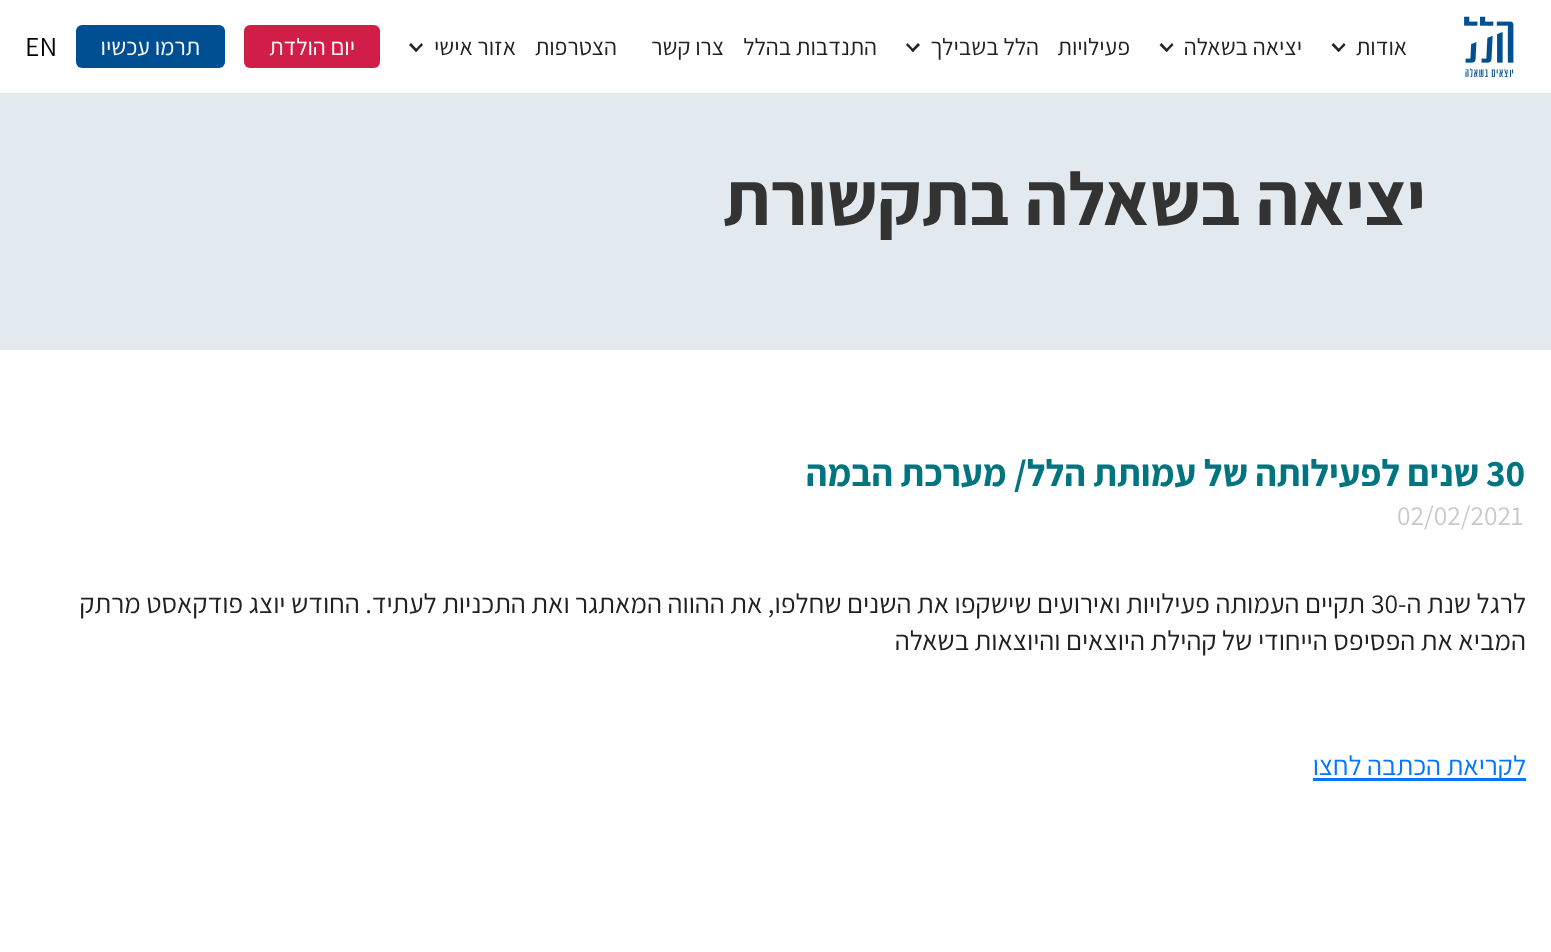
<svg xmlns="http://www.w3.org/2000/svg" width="1551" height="952">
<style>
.a{font:23.75px Assistant;direction:rtl;fill:#212121}
.b{font:23.75px Assistant;direction:rtl;fill:#fff}
.c{font:27.5px Assistant;fill:#000}
.d{font:bold 75px Assistant;direction:rtl;fill:#333}
.e{font:bold 37.5px Assistant;fill:#00747f}
.f{font:bold 37.5px Assistant;direction:rtl;fill:#00747f}
.g{font:27.5px Assistant;fill:#c9c9c9}
.h{font:27.5px Assistant;direction:rtl;fill:#212121}
.i{font:27.5px Assistant;fill:#212121}
.j{font:27.5px Assistant;direction:rtl;fill:#0375ff}
</style>
<rect width="100%" height="100%" fill="#fff"/>
<image href="1.png" x="1464" y="16" width="50" height="61"/>
<path fill="#242424" d="M1344 43l1.5 2l-7 7l-1.5-1.5z"/>
<path fill="#242424" d="M1333.5 43l7 7.5l-2 1.5l-7-7z"/>
<path fill="#242424" d="M1172 43l1.5 2l-7 7l-1.5-1.5z"/>
<path fill="#242424" d="M1161.5 43l7 7.5l-2 1.5l-7-7z"/>
<path fill="#242424" d="M918 43l2 2l-7 7l-2-1.5z"/>
<path fill="#242424" d="M907.5 43l7 7.5l-1.5 1.5l-7-7z"/>
<path fill="#242424" d="M421.5 43l1.5 2l-7 7l-1.5-1.5z"/>
<path fill="#242424" d="M411 43l7 7.5l-2 1.5l-7-7z"/>
<rect fill="#d11e49" x="244" y="25" width="136" height="43" rx="6"/>
<rect fill="#004f92" x="76" y="25" width="149" height="43" rx="6"/>
<path fill="#e2e9ef" d="M0 93h1551v257H0z"/>
<path fill="#0375ff" d="M1313 778h213v3H1313z"/>
<text class="a" x="1407" y="55">אודות</text>
<text class="a" x="1302" y="55">יציאה בשאלה</text>
<text class="a" x="1130" y="55">פעילויות</text>
<text class="a" x="1039" y="55">הלל בשבילך</text>
<text class="a" x="877" y="55">התנדבות בהלל</text>
<text class="a" x="724" y="55">צרו קשר</text>
<text class="a" x="617" y="55">הצטרפות</text>
<text class="a" x="516" y="55">אזור אישי</text>
<text class="b" x="355" y="55">יום הולדת</text>
<text class="b" x="200" y="55">תרמו עכשיו</text>
<text class="c" x="25" y="56">EN</text>
<text class="d" x="1426" y="225">יציאה בשאלה בתקשורת</text>
<text class="e" x="1486" y="486">30</text>
<text class="f" x="1479" y="486">שנים לפעילותה של עמותת הלל/ מערכת הבמה</text>
<text class="g" x="1397" y="525">02/02/2021</text>
<text class="h" x="1526" y="613">לרגל שנת ה-</text>
<text class="i" x="1371" y="613">30</text>
<text class="h" x="1365" y="613">תקיים העמותה פעילויות ואירועים שישקפו את השנים שחלפו, את ההווה המאתגר ואת התכניות לעתיד. החודש יוצג פודקאסט מרתק</text>
<text class="h" x="1526" y="650">המביא את הפסיפס הייחודי של קהילת היוצאים והיוצאות בשאלה</text>
<text class="j" x="1526" y="775">לקריאת הכתבה לחצו</text>
</svg>
